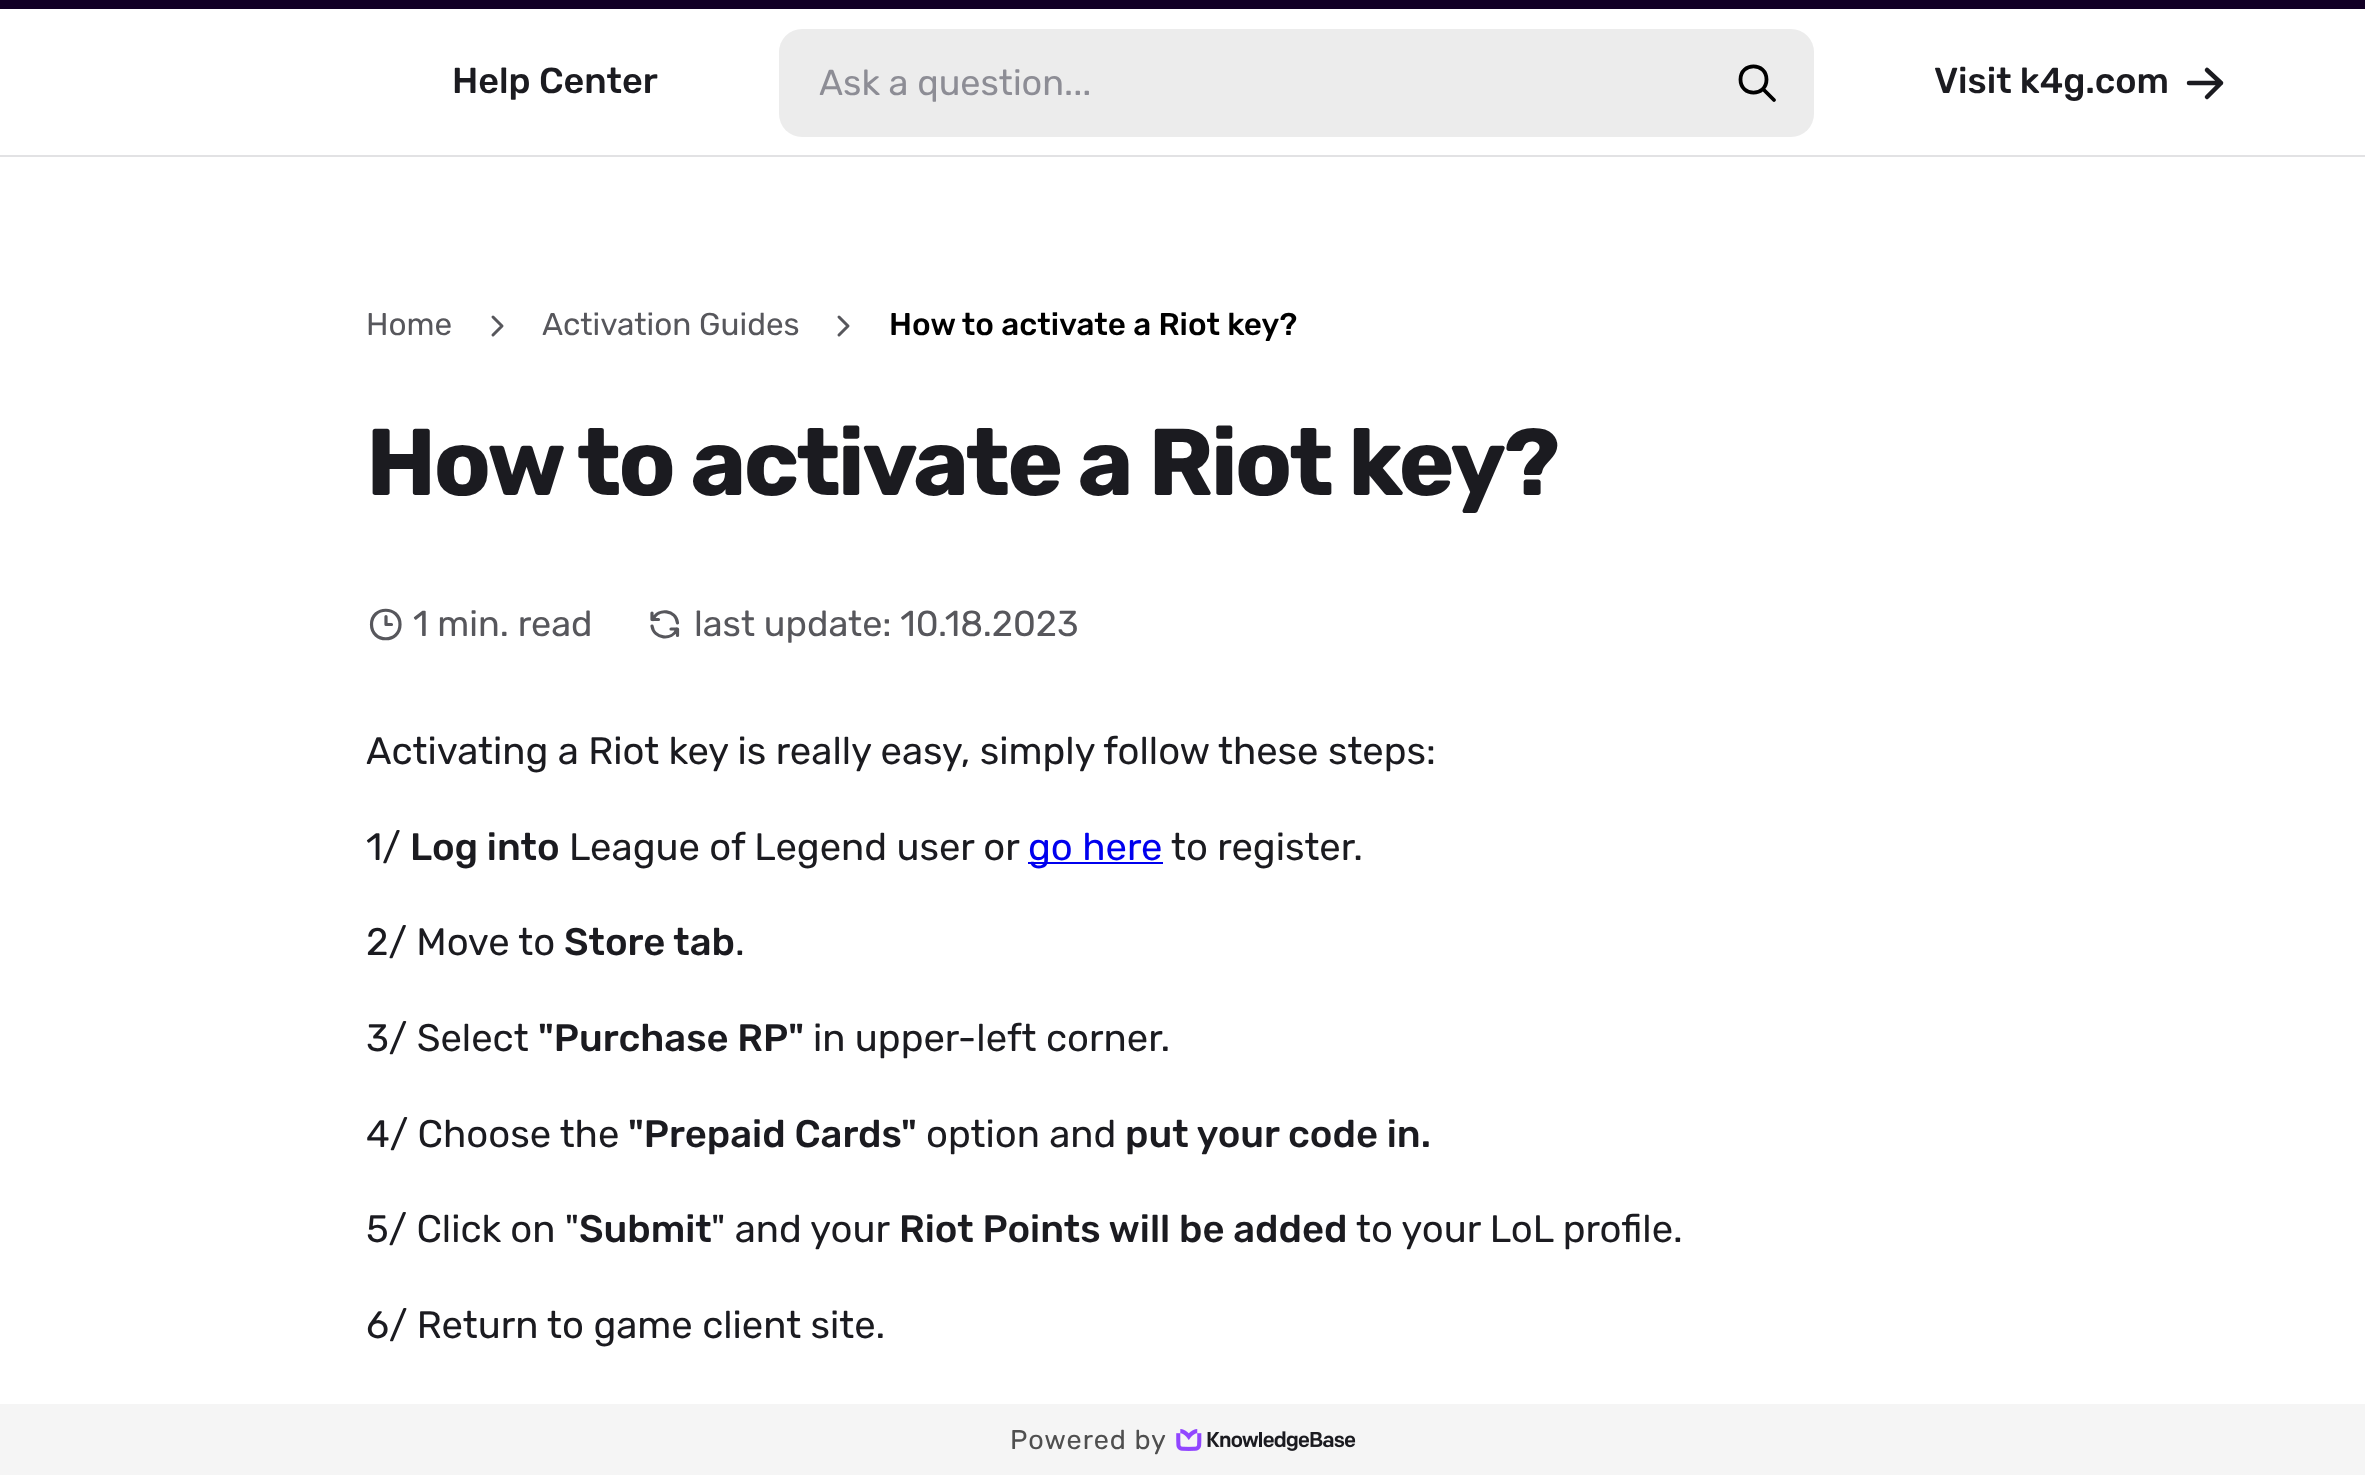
<svg xmlns="http://www.w3.org/2000/svg" width="2365" height="1475">
<style>
.a{font:500 36px Rubik;fill:#1b1b20}
.b{font:36px Rubik;fill:#8d8d95}
.c{font:31.5px Rubik;fill:#57575c}
.d{font:500 31.5px Rubik;fill:#000}
.e{font:bold 94.5px Rubik;letter-spacing:-2.8px;fill:#1b1b20}
.f{font:36px Rubik;fill:#57575c}
.g{font:38.25px Rubik;fill:#1b1b20}
.h{font:500 38.25px Rubik;fill:#1b1b20}
.i{font:38.25px Rubik;fill:#00e}
.j{font:27px Rubik;letter-spacing:1px;fill:#4f4f4f}
</style>
<rect width="100%" height="100%" fill="#fff"/>
<path fill="#120025" d="M0 0h2365v9H0z"/>
<path fill="#e2e2e4" d="M0 155h2365v2H0z"/>
<rect fill="#ececec" x="779" y="29" width="1035" height="108" rx="23"/>
<path fill="none" stroke="#000" stroke-width="3.8" stroke-linecap="round" stroke-linejoin="round" d="M1740.5 79.5c0 17.5 26 17.5 26 0c0-17.5-26-17.5-26 0m33.5 20.5l-11-11"/>
<path fill="none" stroke="#1b1b20" stroke-width="4.5" stroke-linecap="round" stroke-linejoin="round" d="M2189 83h32m-14 14l14-14m-14-13l14 13"/>
<path fill="none" stroke="#57575c" stroke-width="3" stroke-linecap="round" stroke-linejoin="round" d="M493 317l9 9l-9 9"/>
<path fill="none" stroke="#57575c" stroke-width="3" stroke-linecap="round" stroke-linejoin="round" d="M839 317l9 9l-9 9"/>
<path fill="none" stroke="#57575c" stroke-width="3.2" stroke-linecap="round" stroke-linejoin="round" d="M371.5 624.5c0 19 28.5 19 28.5 0c0-19-28.5-19-28.5 0m14.5 0h5.5m-5.5-8v8"/>
<path fill="none" stroke="#57575c" stroke-width="3.2" stroke-linecap="round" stroke-linejoin="round" d="M677.5 623c-1.5-13-19.5-15.5-24.5-3.5m-1-6.5v6.5h6.5m-6.5 6.5c2 13 20 15 25 3m.5 6.5v-6.5h-6.5"/>
<path fill="#00e" d="M1028 862h135v2H1028z"/>
<path fill="#f5f5f5" d="M0 1404h2365v71H0z"/>
<image href="1.png" x="1176" y="1429" width="180" height="22"/>
<text class="a" x="452" y="93">Help Center</text>
<text class="b" x="819" y="95">Ask a question...</text>
<text class="a" x="1934" y="93">Visit k4g.com</text>
<text class="c" x="366" y="335">Home</text>
<text class="c" x="542" y="335">Activation Guides</text>
<text class="d" x="889" y="335">How to activate a Riot key?</text>
<text class="e" x="366" y="495">How to activate a Riot key?</text>
<text class="f" x="413" y="636">1 min. read</text>
<text class="f" x="694" y="636">last update: 10.18.2023</text>
<text class="g" x="366" y="764">Activating a Riot key is really easy, simply follow these steps:</text>
<text class="g" x="366" y="860">1/</text>
<text class="h" x="410" y="860">Log into</text>
<text class="g" x="569" y="860">League of Legend user or</text>
<text class="i" x="1028" y="860">go here</text>
<text class="g" x="1171" y="860">to register.</text>
<text class="g" x="366" y="955">2/ Move to</text>
<text class="h" x="564" y="955">Store tab</text>
<text class="g" x="735" y="955">.</text>
<text class="g" x="366" y="1051">3/ Select</text>
<text class="h" x="538" y="1051">"Purchase RP"</text>
<text class="g" x="813" y="1051">in upper-left corner.</text>
<text class="g" x="366" y="1147">4/ Choose the</text>
<text class="h" x="628" y="1147">"Prepaid Cards"</text>
<text class="g" x="926" y="1147">option and</text>
<text class="h" x="1125" y="1147">put your code in.</text>
<text class="g" x="366" y="1242">5/ Click on "</text>
<text class="h" x="579" y="1242">Submit</text>
<text class="g" x="711" y="1242">" and your</text>
<text class="h" x="899" y="1242">Riot Points will be added</text>
<text class="g" x="1356" y="1242">to your LoL profile.</text>
<text class="g" x="366" y="1338">6/ Return to game client site.</text>
<text class="j" x="1010" y="1449">Powered by</text>
</svg>
